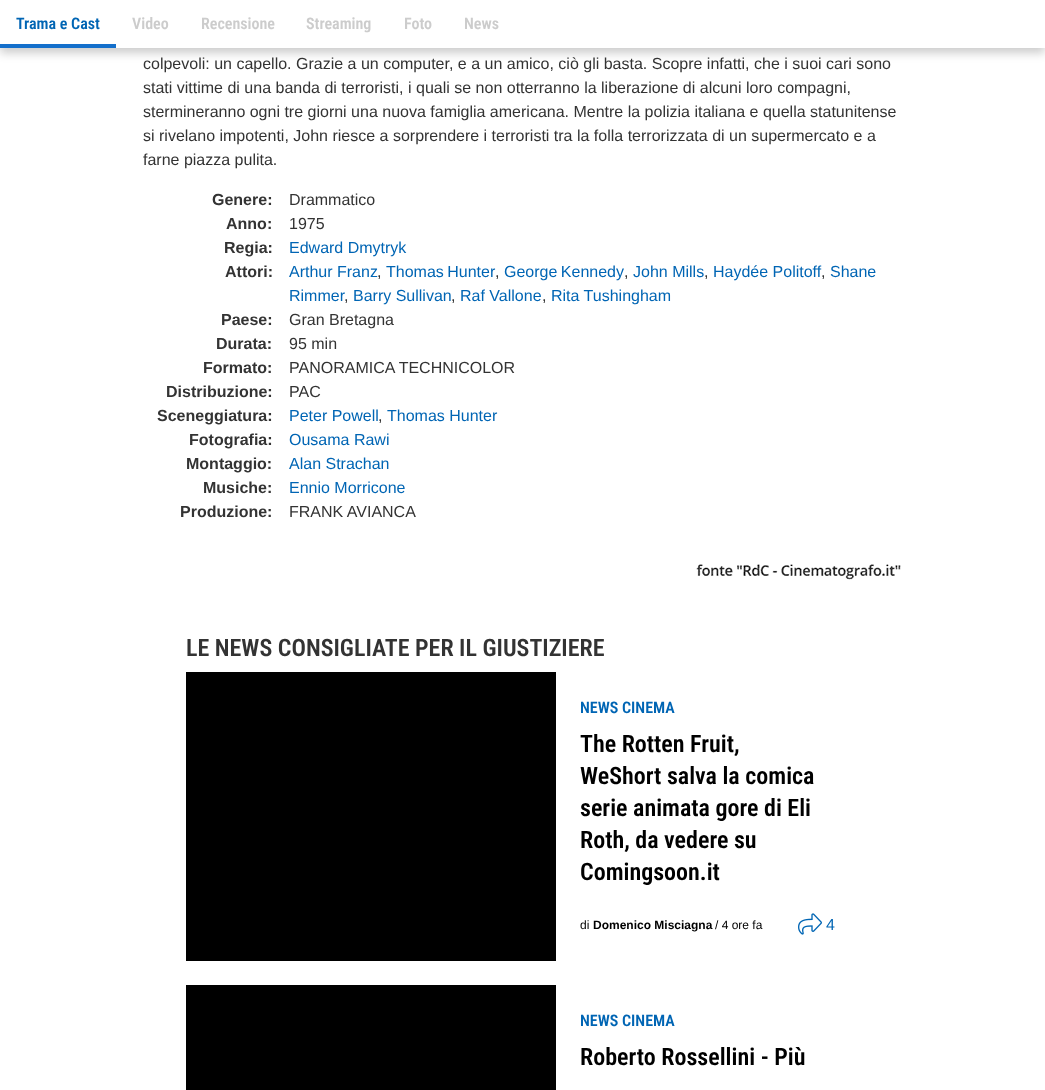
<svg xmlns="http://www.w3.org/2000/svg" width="1045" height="1090">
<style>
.a{font:600 16px Roboto;fill:#0065b4}
.b{font:600 16px Roboto;fill:#ccc}
.c{font:16px Liberation Sans;fill:#333}
.d{font:bold 16px Liberation Sans;fill:#333}
.e{font:16px Liberation Sans;fill:#0065b4}
.f{font:600 24px Roboto;fill:#333}
.g{font:600 24px Roboto;fill:#000}
.h{font:12px Liberation Sans;fill:#000}
.i{font:bold 12px Liberation Sans;fill:#000}
</style>
<rect width="100%" height="100%" fill="#fff"/>
<path fill="#00000033" filter="blur(5px)" d="M0 5h1045v48H0z"/>
<path fill="#fff" d="M0 0h1045v48H0z"/>
<path fill="#146fcb" d="M0 44h116v4H0z"/>
<image href="1.png" x="696" y="564" width="205" height="16"/>
<path fill="#000" d="M186 672h370v289H186z"/>
<image href="2.png" x="798" y="913" width="24" height="22"/>
<path fill="#000" d="M186 985h370v105H186z"/>
<text class="a" x="16" y="29">Trama e Cast</text>
<text class="b" x="132" y="29">Video</text>
<text class="b" x="201" y="29">Recensione</text>
<text class="b" x="306" y="29">Streaming</text>
<text class="b" x="404" y="29">Foto</text>
<text class="b" x="464" y="29">News</text>
<text class="c" x="143" y="69">colpevoli: un capello. Grazie a un computer, e a un amico, ciò gli basta. Scopre infatti, che i suoi cari sono</text>
<text class="c" x="143" y="93">stati vittime di una banda di terroristi, i quali se non otterranno la liberazione di alcuni loro compagni,</text>
<text class="c" x="143" y="117">stermineranno ogni tre giorni una nuova famiglia americana. Mentre la polizia italiana e quella statunitense</text>
<text class="c" x="143" y="141">si rivelano impotenti, John riesce a sorprendere i terroristi tra la folla terrorizzata di un supermercato e a</text>
<text class="c" x="143" y="165">farne piazza pulita.</text>
<text class="d" x="212" y="205">Genere:</text>
<text class="c" x="289" y="205">Drammatico</text>
<text class="d" x="226" y="229">Anno:</text>
<text class="c" x="289" y="229">1975</text>
<text class="d" x="224" y="253">Regia:</text>
<text class="e" x="289" y="253">Edward Dmytryk</text>
<text class="d" x="225" y="277">Attori:</text>
<text class="e" x="289" y="277">Arthur Franz</text>
<text class="c" x="377" y="277">,</text>
<text class="e" x="386" y="277" word-spacing="-1">Thomas Hunter</text>
<text class="c" x="495" y="277">,</text>
<text class="e" x="504" y="277" word-spacing="-1">George Kennedy</text>
<text class="c" x="624" y="277">,</text>
<text class="e" x="633" y="277">John Mills</text>
<text class="c" x="704" y="277">,</text>
<text class="e" x="713" y="277">Haydée Politoff</text>
<text class="c" x="821" y="277">,</text>
<text class="e" x="830" y="277">Shane</text>
<text class="e" x="289" y="301">Rimmer</text>
<text class="c" x="344" y="301">,</text>
<text class="e" x="353" y="301">Barry Sullivan</text>
<text class="c" x="451" y="301">,</text>
<text class="e" x="460" y="301">Raf Vallone</text>
<text class="c" x="542" y="301">,</text>
<text class="e" x="551" y="301">Rita Tushingham</text>
<text class="d" x="221" y="325">Paese:</text>
<text class="c" x="289" y="325">Gran Bretagna</text>
<text class="d" x="216" y="349">Durata:</text>
<text class="c" x="289" y="349">95 min</text>
<text class="d" x="203" y="373">Formato:</text>
<text class="c" x="289" y="373">PANORAMICA TECHNICOLOR</text>
<text class="d" x="166" y="397">Distribuzione:</text>
<text class="c" x="289" y="397">PAC</text>
<text class="d" x="157" y="421">Sceneggiatura:</text>
<text class="e" x="289" y="421">Peter Powell</text>
<text class="c" x="378" y="421">,</text>
<text class="e" x="387" y="421">Thomas Hunter</text>
<text class="d" x="189" y="445">Fotografia:</text>
<text class="e" x="289" y="445">Ousama Rawi</text>
<text class="d" x="186" y="469">Montaggio:</text>
<text class="e" x="289" y="469">Alan Strachan</text>
<text class="d" x="203" y="493">Musiche:</text>
<text class="e" x="289" y="493">Ennio Morricone</text>
<text class="d" x="180" y="517">Produzione:</text>
<text class="c" x="289" y="517">FRANK AVIANCA</text>
<text class="f" x="186" y="656">LE NEWS CONSIGLIATE PER IL GIUSTIZIERE</text>
<text class="a" x="580" y="713">NEWS CINEMA</text>
<text class="g" x="580" y="752">The Rotten Fruit,</text>
<text class="g" x="580" y="784">WeShort salva la comica</text>
<text class="g" x="580" y="816">serie animata gore di Eli</text>
<text class="g" x="580" y="848">Roth, da vedere su</text>
<text class="g" x="580" y="880">Comingsoon.it</text>
<text class="h" x="580" y="929">di</text>
<text class="i" x="593" y="929">Domenico Misciagna</text>
<text class="h" x="715" y="929">/ 4 ore fa</text>
<text class="e" x="826" y="930">4</text>
<text class="a" x="580" y="1026">NEWS CINEMA</text>
<text class="g" x="580" y="1065">Roberto Rossellini - Più</text>
</svg>
